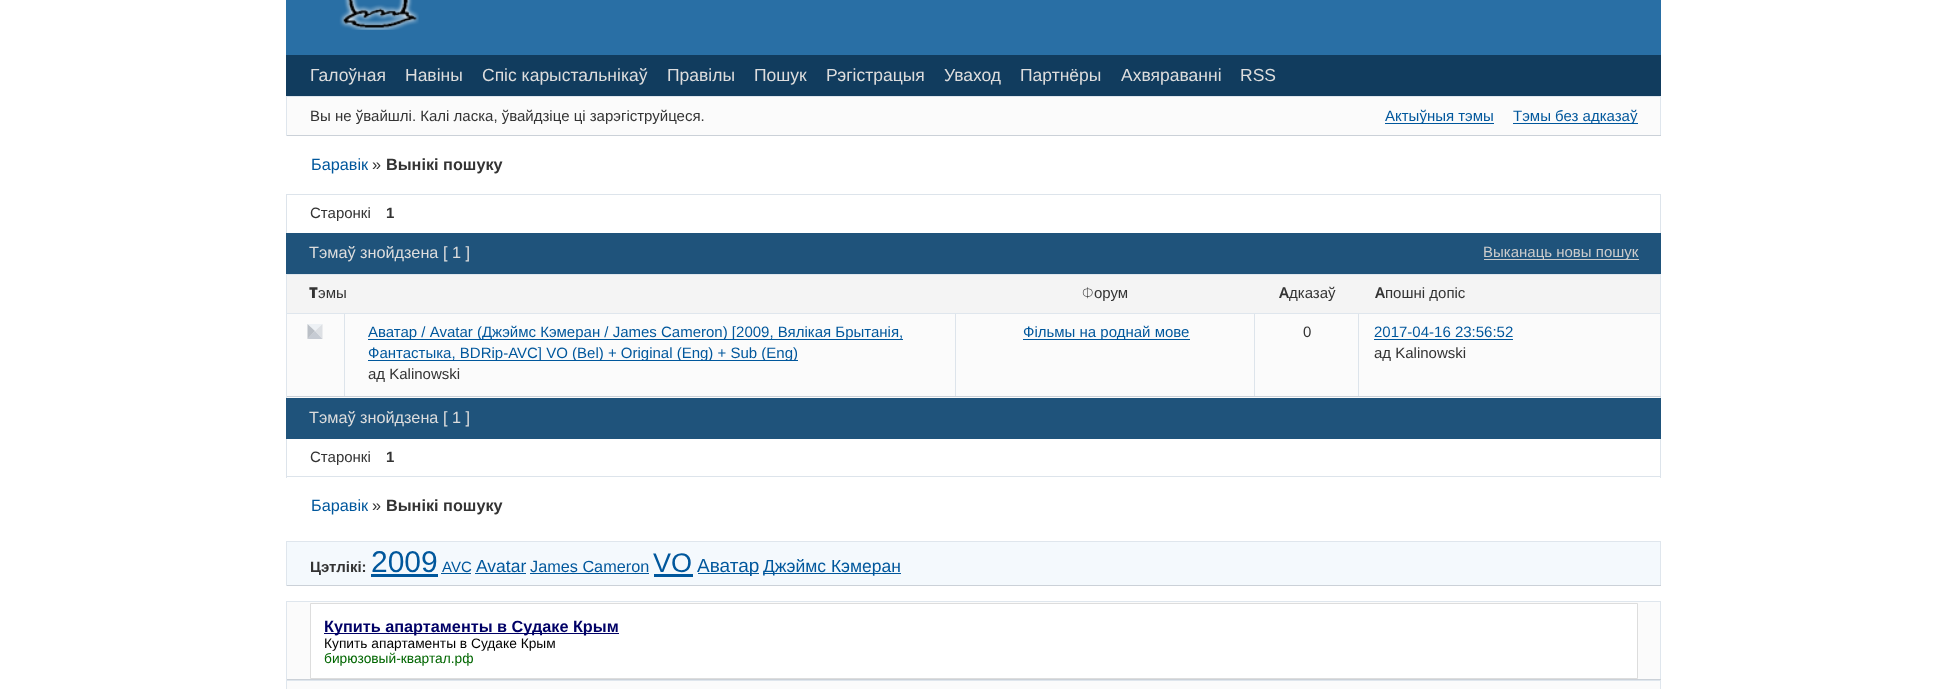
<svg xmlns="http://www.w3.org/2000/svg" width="1947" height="689">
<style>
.a{font:17.5px Liberation Sans;fill:#ddd}
.b{font:15px Liberation Sans;fill:#333}
.c{font:15px Liberation Sans;fill:#00579c}
.d{font:16.25px Liberation Sans;fill:#00579c}
.e{font:16.25px Liberation Sans;fill:#333}
.f{font:bold 16.25px Liberation Sans;fill:#333}
.g{font:bold 15px Liberation Sans;fill:#333}
.h{font:16.25px Liberation Sans;fill:#ddd}
.i{font:15px Liberation Sans;fill:#ccc}
.j{font:900 15px Noto Sans;fill:#333}
.k{font:200 15px Noto Sans;fill:#333}
.l{font:600 15px Noto Sans;fill:#333}
.m{font:30px Liberation Sans;fill:#00579c}
.n{font:17.5px Liberation Sans;fill:#00579c}
.o{font:27px Liberation Sans;fill:#00579c}
.p{font:19px Liberation Sans;fill:#00579c}
.q{font:bold 16.25px Liberation Sans;fill:#006}
.r{font:13.75px Liberation Sans;fill:#000}
.s{font:13.75px Liberation Sans;fill:#060}
</style>
<rect width="100%" height="100%" fill="#fff"/>
<path fill="#296fa5" d="M286 0h1375v55H286z"/>
<image href="1.png" x="339" y="0" width="80" height="30"/>
<path fill="#113c5e" d="M286 55h1375v41H286z"/>
<path fill="#fbfbfb" d="M287 97h1373v38H287z"/>
<path fill="#dfe6ed" d="M286 96h1375v1H286z"/>
<path fill="#dfe6ed" d="M1660 96h1v40H1660z"/>
<path fill="#cbd1d8" d="M286 135h1375v1H286z"/>
<path fill="#dfe6ed" d="M286 96h1v40H286z"/>
<path fill="#00579c" d="M1385 123h109v1H1385z"/>
<path fill="#00579c" d="M1513 123h125v1H1513z"/>
<path fill="#dde4eb" d="M286 194h1375v1H286z"/>
<path fill="#dde4eb" d="M1660 194h1v39H1660z"/>
<path fill="#dde4eb" d="M286 194h1v39H286z"/>
<path fill="#1f537b" d="M286 233h1375v41H286z"/>
<path fill="#ccc" d="M1484 259h155v1H1484z"/>
<path fill="#f4f4f4" d="M287 275h1373v38H287z"/>
<path fill="#dfe6ed" d="M286 274h1375v1H286z"/>
<path fill="#dfe6ed" d="M1660 274h1v39H1660z"/>
<path fill="#dfe6ed" d="M286 274h1v39H286z"/>
<path fill="#fbfbfb" d="M287 314h1373v84H287z"/>
<path fill="#dfe6ed" d="M286 313h1375v1H286z"/>
<path fill="#dfe6ed" d="M1660 313h1v85H1660z"/>
<path fill="#cbd1d8" d="M286 396h1375v1H286z"/>
<path fill="#dfe6ed" d="M286 313h1v85H286z"/>
<path fill="#edf1f5" d="M307.5 324h15l-7.5 7z"/>
<path fill="#dde0e4" d="M322.5 324v15l-7.5-8z"/>
<path fill="#c6cbd3" d="M322.5 339h-15l7.5-8z"/>
<path fill="#babfc6" d="M307.5 339v-15l7.5 7z"/>
<path fill="#dde4eb" d="M344 314h1v82H344z"/>
<path fill="#00579c" d="M368 339h535v1H368z"/>
<path fill="#00579c" d="M368 360h430v1H368z"/>
<path fill="#dde4eb" d="M955 314h1v82H955z"/>
<path fill="#00579c" d="M1023 339h167v1H1023z"/>
<path fill="#dde4eb" d="M1254 314h1v82H1254z"/>
<path fill="#dde4eb" d="M1358 314h1v82H1358z"/>
<path fill="#00579c" d="M1374 339h139v1H1374z"/>
<path fill="#1f537b" d="M286 398h1375v41H286z"/>
<path fill="#dde4eb" d="M1660 439h1v39H1660z"/>
<path fill="#dde4eb" d="M286 476h1375v1H286z"/>
<path fill="#dde4eb" d="M286 439h1v39H286z"/>
<path fill="#f4f9fd" d="M287 542h1373v43H287z"/>
<path fill="#dfe6ed" d="M286 541h1375v1H286z"/>
<path fill="#dfe6ed" d="M1660 541h1v45H1660z"/>
<path fill="#cbd1d8" d="M286 585h1375v1H286z"/>
<path fill="#dfe6ed" d="M286 541h1v45H286z"/>
<path fill="#00579c" d="M371 574h67v3H371z"/>
<path fill="#00579c" d="M441 573h30v1H441z"/>
<path fill="#00579c" d="M475 573h51v1H475z"/>
<path fill="#00579c" d="M530 573h119v1H530z"/>
<path fill="#00579c" d="M654 574h39v3H654z"/>
<path fill="#00579c" d="M698 573h61v1H698z"/>
<path fill="#00579c" d="M763 573h138v1H763z"/>
<path fill="#fbfbfb" d="M287 602h1373v77H287z"/>
<path fill="#dfe6ed" d="M286 601h1375v1H286z"/>
<path fill="#dfe6ed" d="M1660 601h1v79H1660z"/>
<path fill="#cbd1d8" d="M286 679h1375v1H286z"/>
<path fill="#dfe6ed" d="M286 601h1v79H286z"/>
<path fill="#fff" stroke="#ddd" d="M310.5 603.5h1327v75H310.5z"/>
<path fill="#006" d="M324 633h295v1H324z"/>
<path fill="#fbfbfb" d="M287 681h1373v8H287z"/>
<path fill="#dfe6ed" d="M286 680h1375v1H286z"/>
<path fill="#dfe6ed" d="M1660 680h1v9H1660z"/>
<path fill="#dfe6ed" d="M286 680h1v9H286z"/>
<text class="a" x="310" y="81">Галоўная</text>
<text class="a" x="405" y="81">Навіны</text>
<text class="a" x="482" y="81">Спіс карыстальнікаў</text>
<text class="a" x="667" y="81">Правілы</text>
<text class="a" x="754" y="81">Пошук</text>
<text class="a" x="826" y="81">Рэгістрацыя</text>
<text class="a" x="944" y="81">Уваход</text>
<text class="a" x="1020" y="81">Партнёры</text>
<text class="a" x="1121" y="81">Ахвяраванні</text>
<text class="a" x="1240" y="81">RSS</text>
<text class="b" x="310" y="121">Вы не ўвайшлі. Калі ласка, ўвайдзіце ці зарэгіструйцеся.</text>
<text class="c" x="1385" y="121">Актыўныя тэмы</text>
<text class="c" x="1513" y="121">Тэмы без адказаў</text>
<text class="d" x="311" y="170">Баравік</text>
<text class="e" x="372" y="170">»</text>
<text class="f" x="386" y="170">Вынікі пошуку</text>
<text class="b" x="310" y="218">Старонкі</text>
<text class="g" x="386" y="218">1</text>
<text class="h" x="309" y="258">Тэмаў знойдзена [ 1 ]</text>
<text class="i" x="1483" y="257">Выканаць новы пошук</text>
<text class="j" x="309" y="298">Т</text>
<text class="b" x="318" y="298">эмы</text>
<text class="k" x="1082" y="298">Ф</text>
<text class="b" x="1094" y="298">орум</text>
<text class="l" x="1279" y="298">А</text>
<text class="b" x="1289" y="298">дказаў</text>
<text class="l" x="1375" y="298">А</text>
<text class="b" x="1385" y="298">пошні допіс</text>
<text class="c" x="368" y="337">Аватар / Avatar (Джэймс Кэмеран / James Cameron) [2009, Вялікая Брытанія,</text>
<text class="c" x="368" y="358">Фантастыка, BDRip-AVC] VO (Bel) + Original (Eng) + Sub (Eng)</text>
<text class="b" x="368" y="379">ад Kalinowski</text>
<text class="c" x="1023" y="337">Фільмы на роднай мове</text>
<text class="b" x="1303" y="337">0</text>
<text class="c" x="1374" y="337">2017-04-16 23:56:52</text>
<text class="b" x="1374" y="358">ад Kalinowski</text>
<text class="h" x="309" y="423">Тэмаў знойдзена [ 1 ]</text>
<text class="b" x="310" y="462">Старонкі</text>
<text class="g" x="386" y="462">1</text>
<text class="d" x="311" y="511">Баравік</text>
<text class="e" x="372" y="511">»</text>
<text class="f" x="386" y="511">Вынікі пошуку</text>
<text class="g" x="310" y="572">Цэтлікі:</text>
<text class="m" x="371" y="572">2009</text>
<text class="c" x="442" y="572">AVC</text>
<text class="n" x="476" y="572">Avatar</text>
<text class="d" x="530" y="572">James Cameron</text>
<text class="o" x="653" y="572">VO</text>
<text class="p" x="697" y="572">Аватар</text>
<text class="n" x="763" y="572">Джэймс Кэмеран</text>
<text class="q" x="324" y="632">Купить апартаменты в Судаке Крым</text>
<text class="r" x="324" y="648">Купить апартаменты в Судаке Крым</text>
<text class="s" x="324" y="663">бирюзовый-квартал.рф</text>
</svg>
